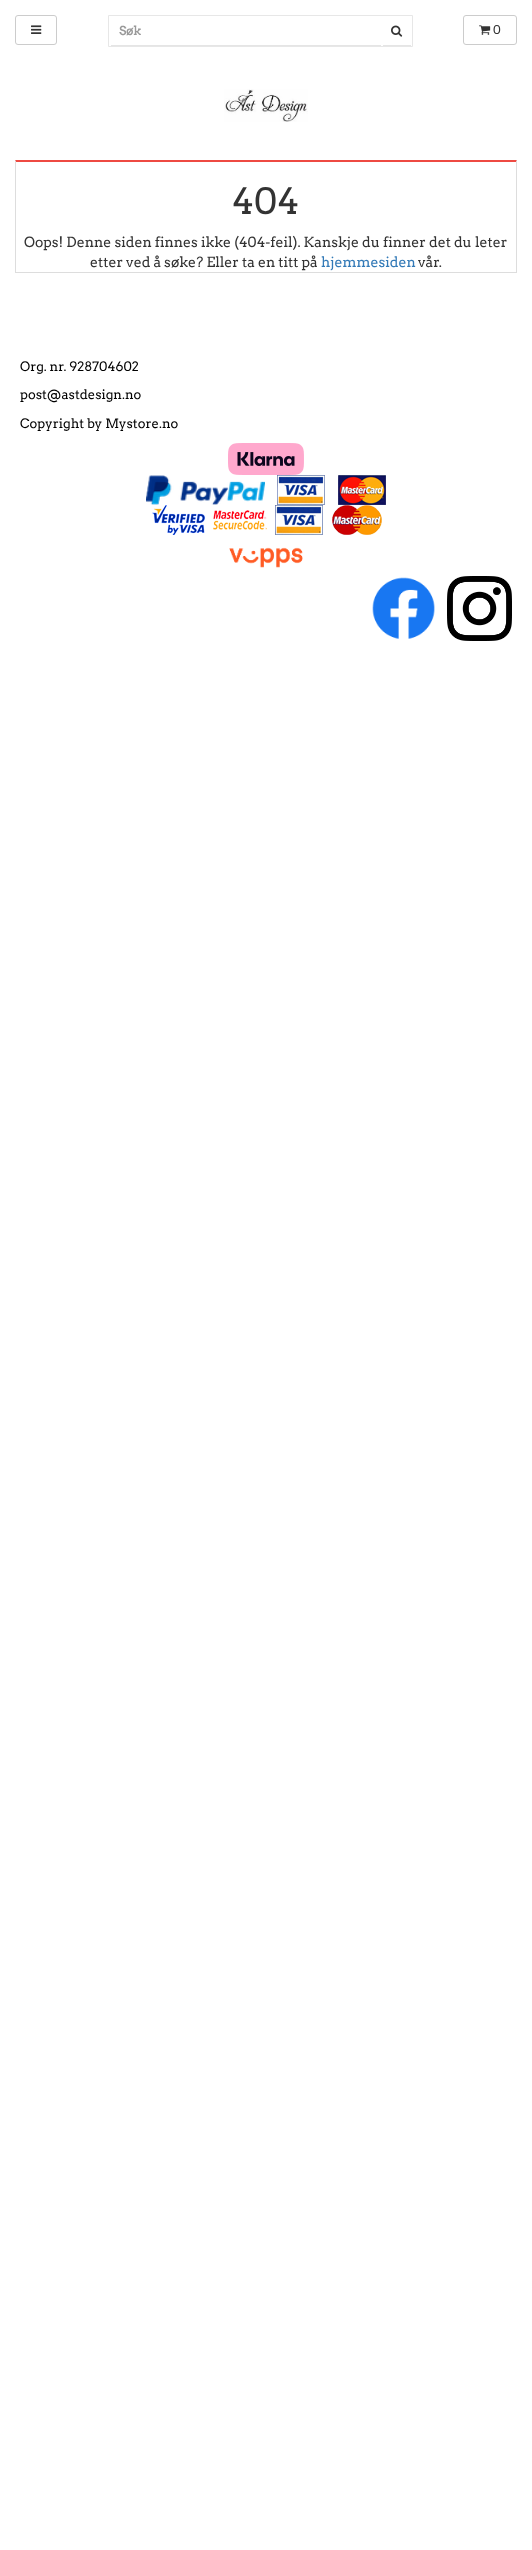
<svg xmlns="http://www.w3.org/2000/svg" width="532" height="2550">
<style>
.a{font:bold 12px Arvo;fill:#999}
.b{font:12px Arvo;fill:#333}
.c{font:36px Arvo;fill:#333}
.d{font:14px Arvo;fill:#333}
.e{font:14px Arvo;fill:#337ab7}
.f{font:13px Arvo;fill:#000}
</style>
<rect width="100%" height="100%" fill="#fff"/>
<rect fill="none" stroke="#ccc" x="15.5" y="15.5" width="41" height="29" rx="2.5"/>
<image href="1.png" x="31" y="25" width="11" height="9"/>
<path fill="none" stroke="#e7e7e7" d="M108.5 15.5h304v31H108.5z"/>
<path fill="#e5e5e5" d="M111 45h270v1H111z"/>
<path fill="#e5e5e5" d="M383 45h28v1H383z"/>
<image href="2.png" x="391" y="25" width="12" height="12"/>
<rect fill="none" stroke="#ccc" x="463.5" y="15.5" width="53" height="29" rx="2.5"/>
<image href="3.png" x="479" y="25" width="12" height="10"/>
<image href="4.png" x="224" y="89" width="84" height="33"/>
<path fill="#ee4a42" d="M15 160h502l-1 2h-500z"/>
<path fill="#ddd" d="M517 160v113l-1-1v-110z"/>
<path fill="#ddd" d="M15 272h502v1H15z"/>
<path fill="#ddd" d="M15 273v-113l1 2v110z"/>
<image href="5.png" x="228" y="443" width="76" height="32"/>
<image href="6.png" x="146" y="475" width="119" height="30"/>
<image href="7.png" x="277" y="475" width="48" height="30"/>
<image href="8.png" x="338" y="475" width="48" height="30"/>
<image href="9.png" x="152" y="505" width="230" height="30"/>
<image href="10.png" x="229" y="547" width="74" height="21"/>
<image href="11.png" x="372" y="577" width="63" height="62"/>
<image href="12.png" x="447" y="576" width="65" height="65"/>
<text class="a" x="119" y="35">Søk</text>
<text class="b" x="493" y="34">0</text>
<text class="c" x="232" y="214">404</text>
<text class="d" x="24" y="247">Oops! Denne siden finnes ikke (404-feil). Kanskje du finner det du leter</text>
<text class="d" x="90" y="267">etter ved å søke? Eller ta en titt på</text>
<text class="e" x="321" y="267">hjemmesiden</text>
<text class="d" x="418" y="267">vår.</text>
<text class="f" x="20" y="371">Org. nr. 928704602</text>
<text class="f" x="20" y="399">post@astdesign.no</text>
<text class="f" x="20" y="428">Copyright by Mystore.no</text>
</svg>
